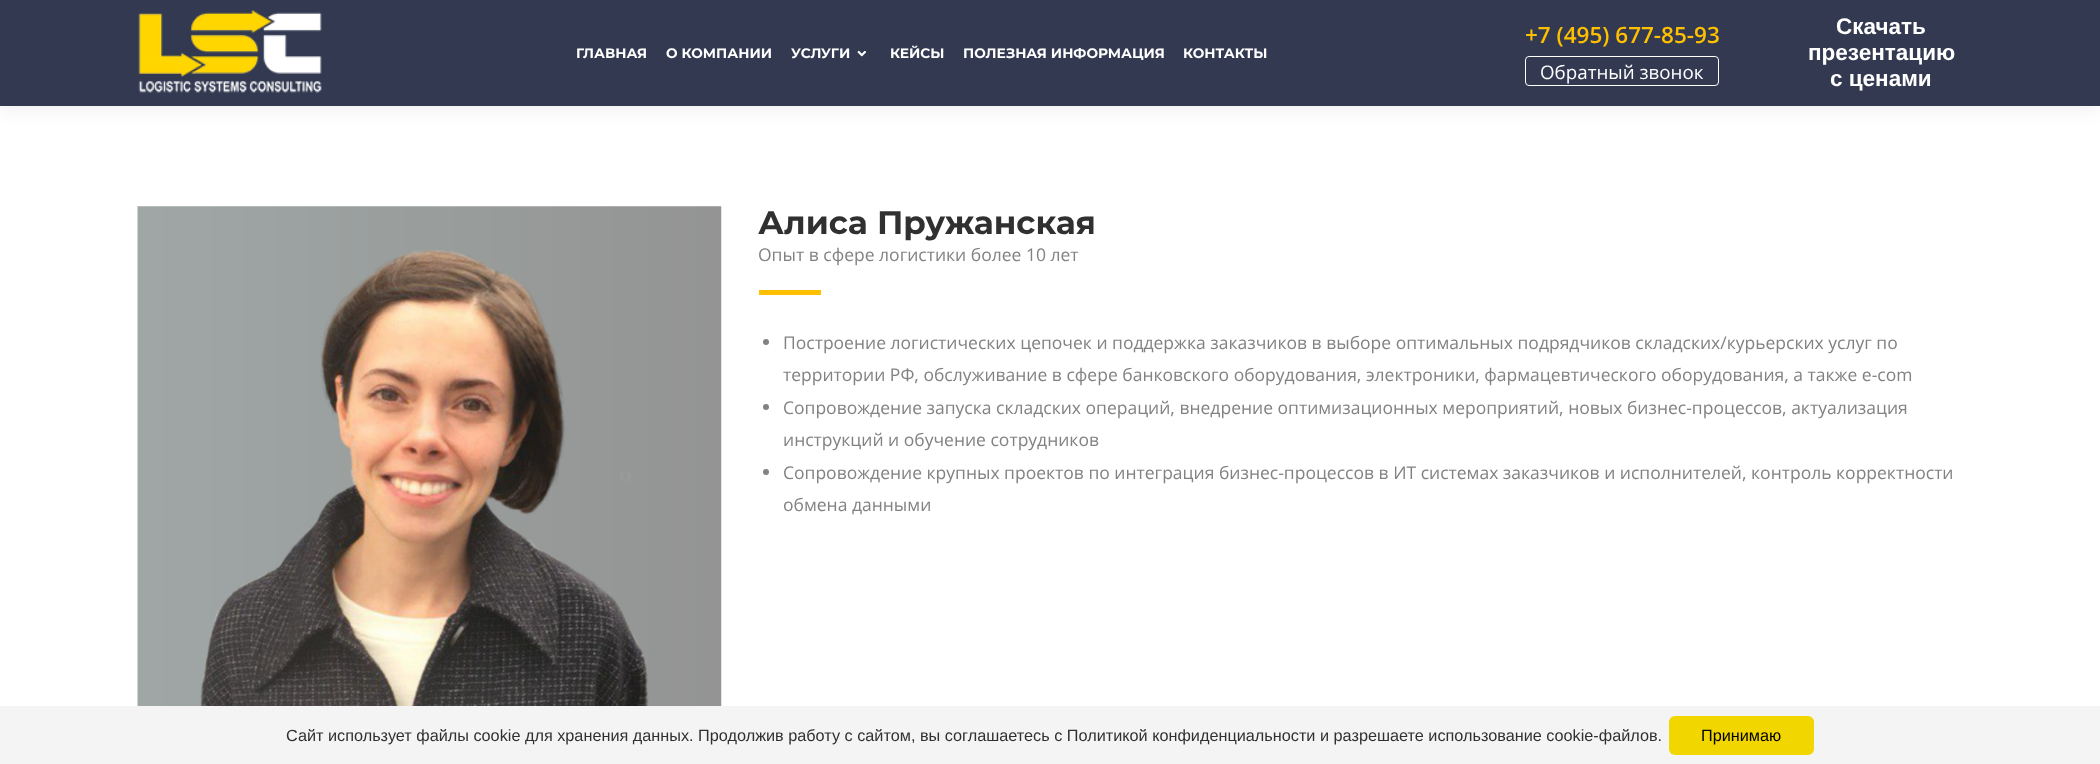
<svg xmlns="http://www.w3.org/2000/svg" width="2100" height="764">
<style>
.a{font:bold 13.75px Montserrat;fill:#fff}
.b{font:600 22.5px Open Sans;fill:#ffc000}
.c{font:18.75px Open Sans;fill:#fff}
.d{font:bold 22.5px Liberation Sans;fill:#fff}
.e{font:bold 32.5px Montserrat;fill:#303030}
.f{font:17.5px Open Sans;fill:#828282}
.g{font:16.25px Liberation Sans;fill:#303030}
.h{font:16.25px Liberation Sans;fill:#000}
</style>
<rect width="100%" height="100%" fill="#fff"/>
<path fill="#00000012" filter="blur(9.5px)" d="M-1 -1h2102v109H-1z"/>
<path fill="#323951" d="M0 0h2100v106H0z"/>
<image href="1.png" x="138" y="10" width="184" height="83"/>
<image href="2.png" x="857" y="50" width="10" height="7"/>
<rect fill="none" stroke="#fff" x="1525.5" y="56.5" width="193" height="29" rx="3.5"/>
<image href="3.png" x="137" y="206" width="585" height="500"/>
<path fill="#ffc000" d="M759 290h62v5H759z"/>
<circle fill="#828282" cx="766" cy="342" r="3"/>
<circle fill="#828282" cx="766" cy="407" r="3"/>
<circle fill="#828282" cx="766" cy="472" r="3"/>
<path fill="#f4f4f4" d="M0 706h2100v58H0z"/>
<rect fill="#f1d600" x="1669" y="716" width="145" height="39" rx="6"/>
<text class="a" x="576" y="58">ГЛАВНАЯ</text>
<text class="a" x="666" y="58">О КОМПАНИИ</text>
<text class="a" x="791" y="58">УСЛУГИ</text>
<text class="a" x="890" y="58">КЕЙСЫ</text>
<text class="a" x="963" y="58">ПОЛЕЗНАЯ ИНФОРМАЦИЯ</text>
<text class="a" x="1183" y="58">КОНТАКТЫ</text>
<text class="b" x="1525" y="43">+7 (495) 677-85-93</text>
<text class="c" x="1540" y="79">Обратный звонок</text>
<text class="d" x="1836" y="34">Скачать</text>
<text class="d" x="1808" y="60">презентацию</text>
<text class="d" x="1830" y="86">с ценами</text>
<text class="e" x="758" y="234">Алиса Пружанская</text>
<text class="f" x="758" y="261">Опыт в сфере логистики более 10 лет</text>
<text class="f" x="783" y="349">Построение логистических цепочек и поддержка заказчиков в выборе оптимальных подрядчиков складских/курьерских услуг по</text>
<text class="f" x="783" y="381">территории РФ, обслуживание в сфере банковского оборудования, электроники, фармацевтического оборудования, а также е-сom</text>
<text class="f" x="783" y="414">Сопровождение запуска складских операций, внедрение оптимизационных мероприятий, новых бизнес-процессов, актуализация</text>
<text class="f" x="783" y="446">инструкций и обучение сотрудников</text>
<text class="f" x="783" y="479">Сопровождение крупных проектов по интеграция бизнес-процессов в ИТ системах заказчиков и исполнителей, контроль корректности</text>
<text class="f" x="783" y="511">обмена данными</text>
<text class="g" x="286" y="741">Сайт использует файлы cookie для хранения данных. Продолжив работу с сайтом, вы соглашаетесь с Политикой конфиденциальности и разрешаете использование cookie-файлов.</text>
<text class="h" x="1701" y="741">Принимаю</text>
</svg>
